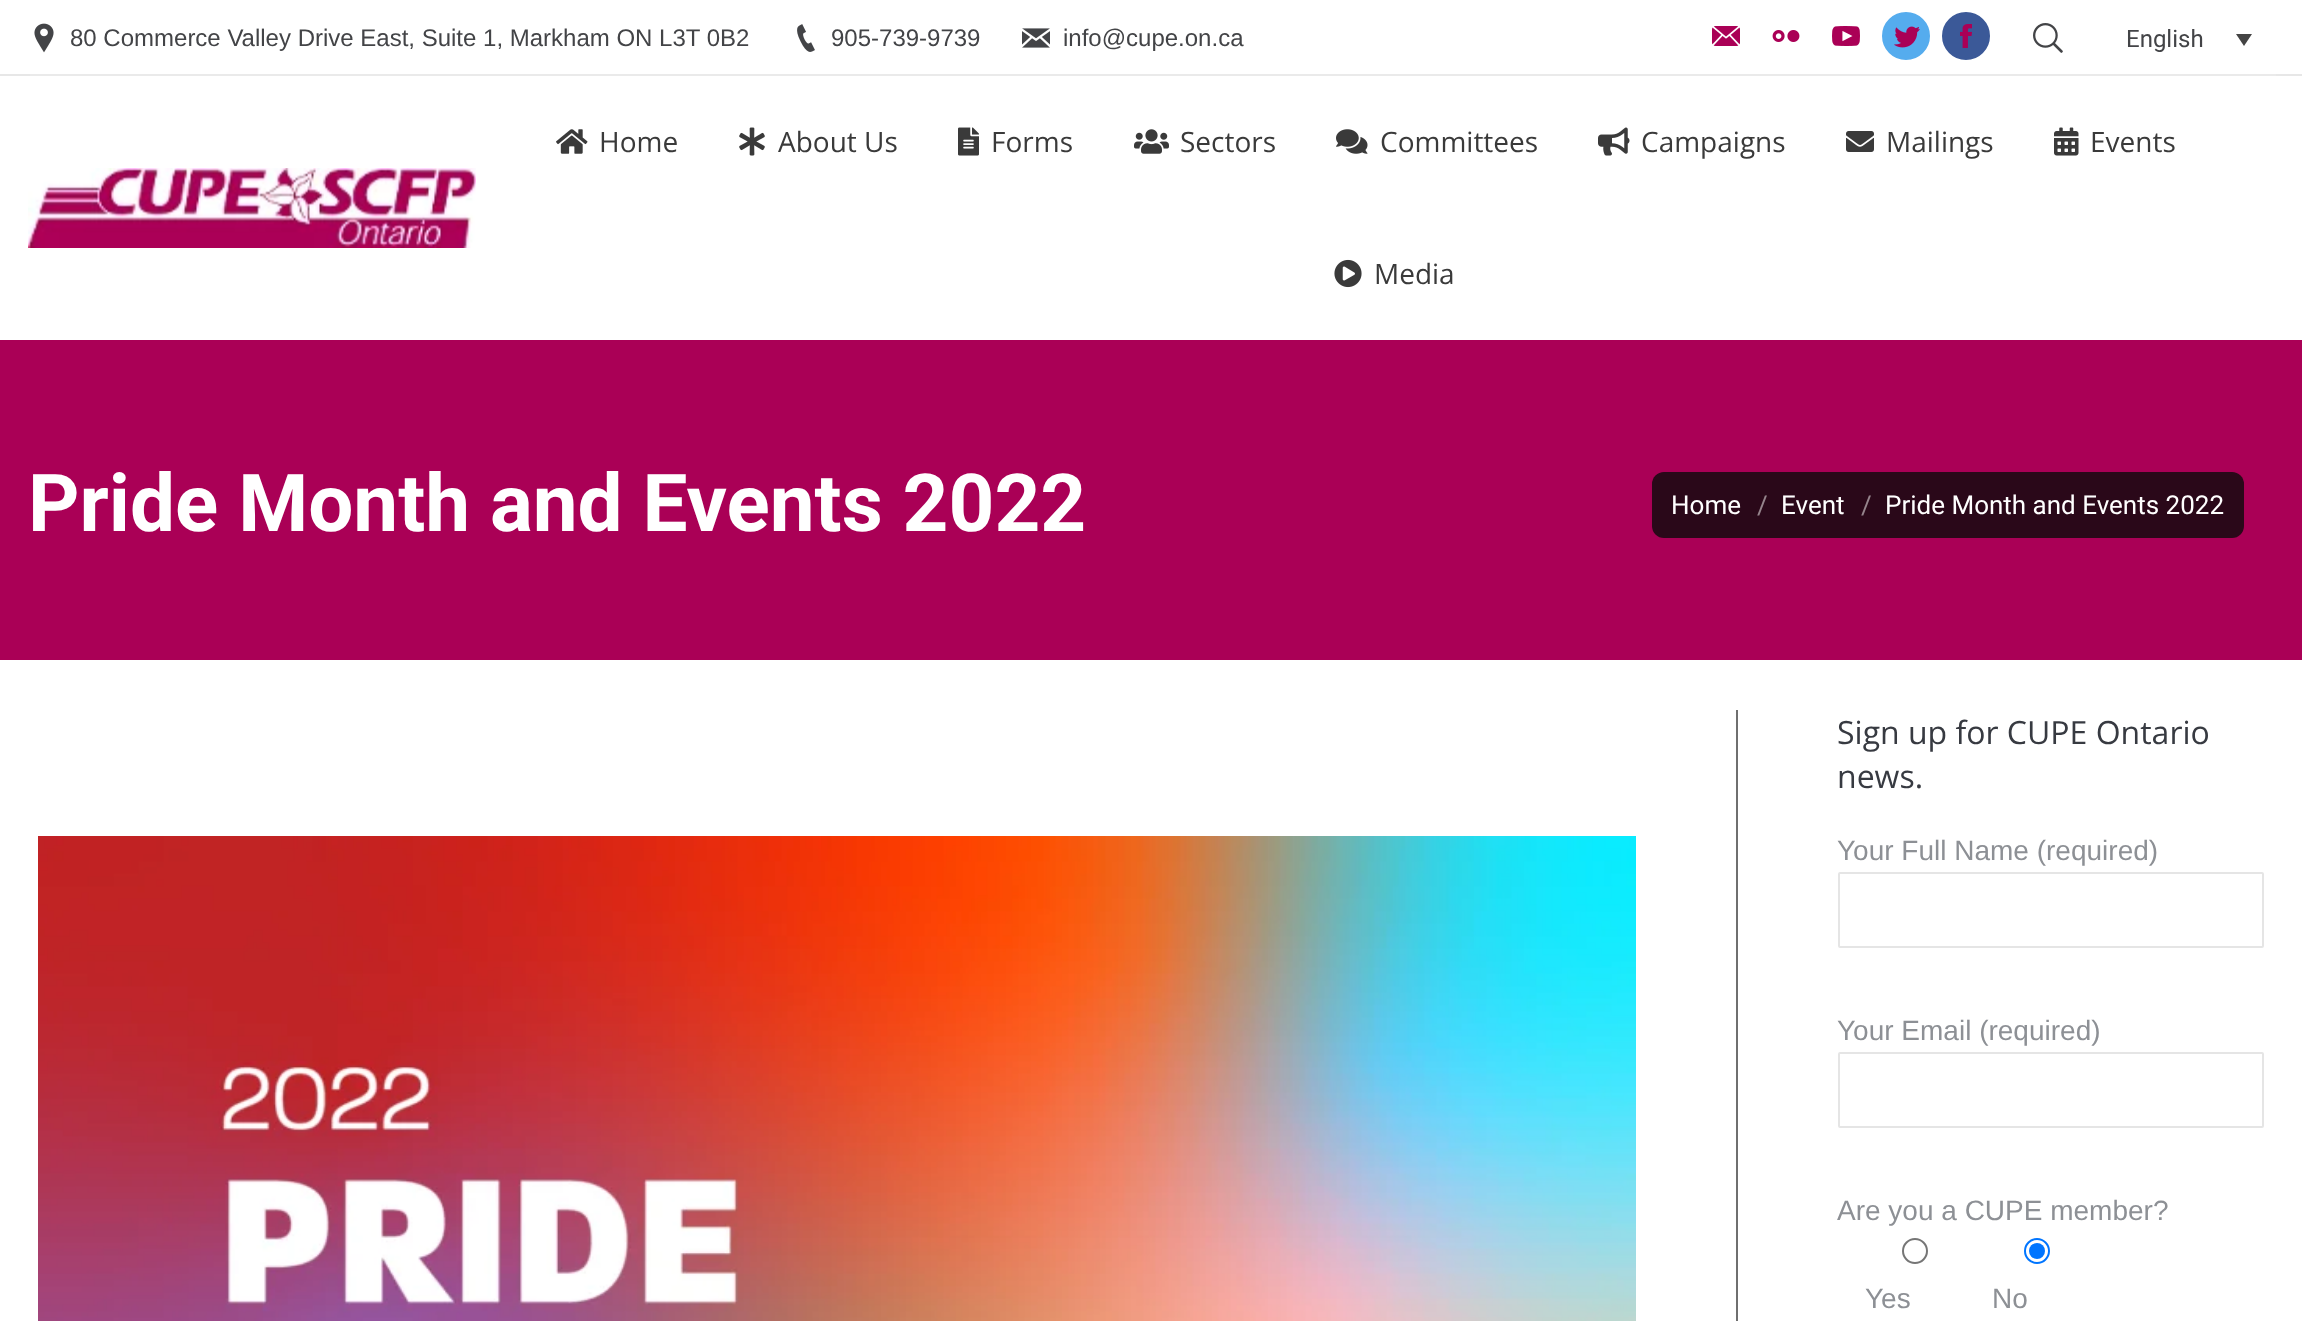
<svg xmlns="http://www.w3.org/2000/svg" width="2302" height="1321">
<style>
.a{font:24px Liberation Sans;fill:#434447}
.b{font:24px Roboto;fill:#434447}
.c{font:28px Open Sans;fill:#3a3a3a}
.d{font:bold 80px Roboto;fill:#fff}
.e{font:26px Roboto;fill:#fff}
.f{font:26px Roboto;fill:#95848c}
.g{font:32px Open Sans;fill:#373a41}
.h{font:28px Liberation Sans;fill:#8d9095}
</style>
<rect width="100%" height="100%" fill="#fff"/>
<image href="1.png" x="34" y="23" width="20" height="30"/>
<image href="2.png" x="797" y="24" width="18" height="28"/>
<image href="3.png" x="1022" y="28" width="28" height="20"/>
<image href="4.png" x="1712" y="26" width="28" height="20"/>
<image href="5.png" x="1772" y="30" width="28" height="12"/>
<image href="6.png" x="1832" y="26" width="28" height="20"/>
<circle fill="#55acee" stroke="#fff" stroke-width="2" cx="1906" cy="36" r="25"/>
<image href="7.png" x="1894" y="26" width="26" height="22"/>
<circle fill="#3b5998" stroke="#fff" stroke-width="2" cx="1966" cy="36" r="25"/>
<image href="8.png" x="1960" y="24" width="12" height="24"/>
<image href="9.png" x="2033" y="23" width="30" height="30"/>
<path fill="#444" d="M2236 34h16l-8 12z"/>
<path fill="#e7e7e7" d="M0 74h2302v2H0z"/>
<path fill="#eaeaea" d="M30 74h2246v2H30z"/>
<image href="10.png" x="28" y="168" width="448" height="80"/>
<image href="11.png" x="556" y="129" width="32" height="25"/>
<image href="12.png" x="739" y="127" width="26" height="29"/>
<image href="13.png" x="958" y="127" width="21" height="29"/>
<image href="14.png" x="1134" y="129" width="35" height="25"/>
<image href="15.png" x="1336" y="129" width="32" height="25"/>
<image href="16.png" x="1598" y="127" width="32" height="29"/>
<image href="17.png" x="1846" y="131" width="28" height="21"/>
<image href="18.png" x="2054" y="127" width="25" height="29"/>
<image href="19.png" x="1334" y="259" width="28" height="29"/>
<path fill="#aa0056" d="M0 340h2302v320H0z"/>
<rect fill="#2a0819" x="1652" y="472" width="592" height="66" rx="12"/>
<image href="20.png" x="38" y="836" width="1598" height="485"/>
<path fill="#6f6f6f" d="M1736 710h2v611H1736z"/>
<rect fill="none" stroke="#e5e5e5" stroke-width="2" x="1839" y="873" width="424" height="74" rx="1"/>
<rect fill="none" stroke="#e5e5e5" stroke-width="2" x="1839" y="1053" width="424" height="74" rx="1"/>
<circle fill="none" stroke="#767676" stroke-width="2" cx="1915" cy="1251" r="12"/>
<circle fill="none" stroke="#0075ff" stroke-width="2" cx="2037" cy="1251" r="12"/>
<circle fill="#0075ff" cx="2037" cy="1251" r="8"/>
<text class="a" x="70" y="46">80 Commerce Valley Drive East, Suite 1, Markham ON L3T 0B2</text>
<text class="a" x="831" y="46">905-739-9739</text>
<text class="a" x="1063" y="46">info@cupe.on.ca</text>
<text class="b" x="2126" y="47">English</text>
<text class="c" x="599" y="152">Home</text>
<text class="c" x="778" y="152">About Us</text>
<text class="c" x="991" y="152">Forms</text>
<text class="c" x="1180" y="152">Sectors</text>
<text class="c" x="1380" y="152">Committees</text>
<text class="c" x="1641" y="152">Campaigns</text>
<text class="c" x="1886" y="152">Mailings</text>
<text class="c" x="2090" y="152">Events</text>
<text class="c" x="1374" y="284">Media</text>
<text class="d" x="28" y="531">Pride Month and Events 2022</text>
<text class="e" x="1671" y="514">Home</text>
<text class="f" x="1757" y="514">/</text>
<text class="e" x="1781" y="514">Event</text>
<text class="f" x="1861" y="514">/</text>
<text class="e" x="1885" y="514">Pride Month and Events 2022</text>
<text class="g" x="1837" y="744">Sign up for CUPE Ontario</text>
<text class="g" x="1837" y="788">news.</text>
<text class="h" x="1837" y="860">Your Full Name (required)</text>
<text class="h" x="1837" y="1040">Your Email (required)</text>
<text class="h" x="1837" y="1220">Are you a CUPE member?</text>
<text class="h" x="1865" y="1308">Yes</text>
<text class="h" x="1992" y="1308">No</text>
</svg>
